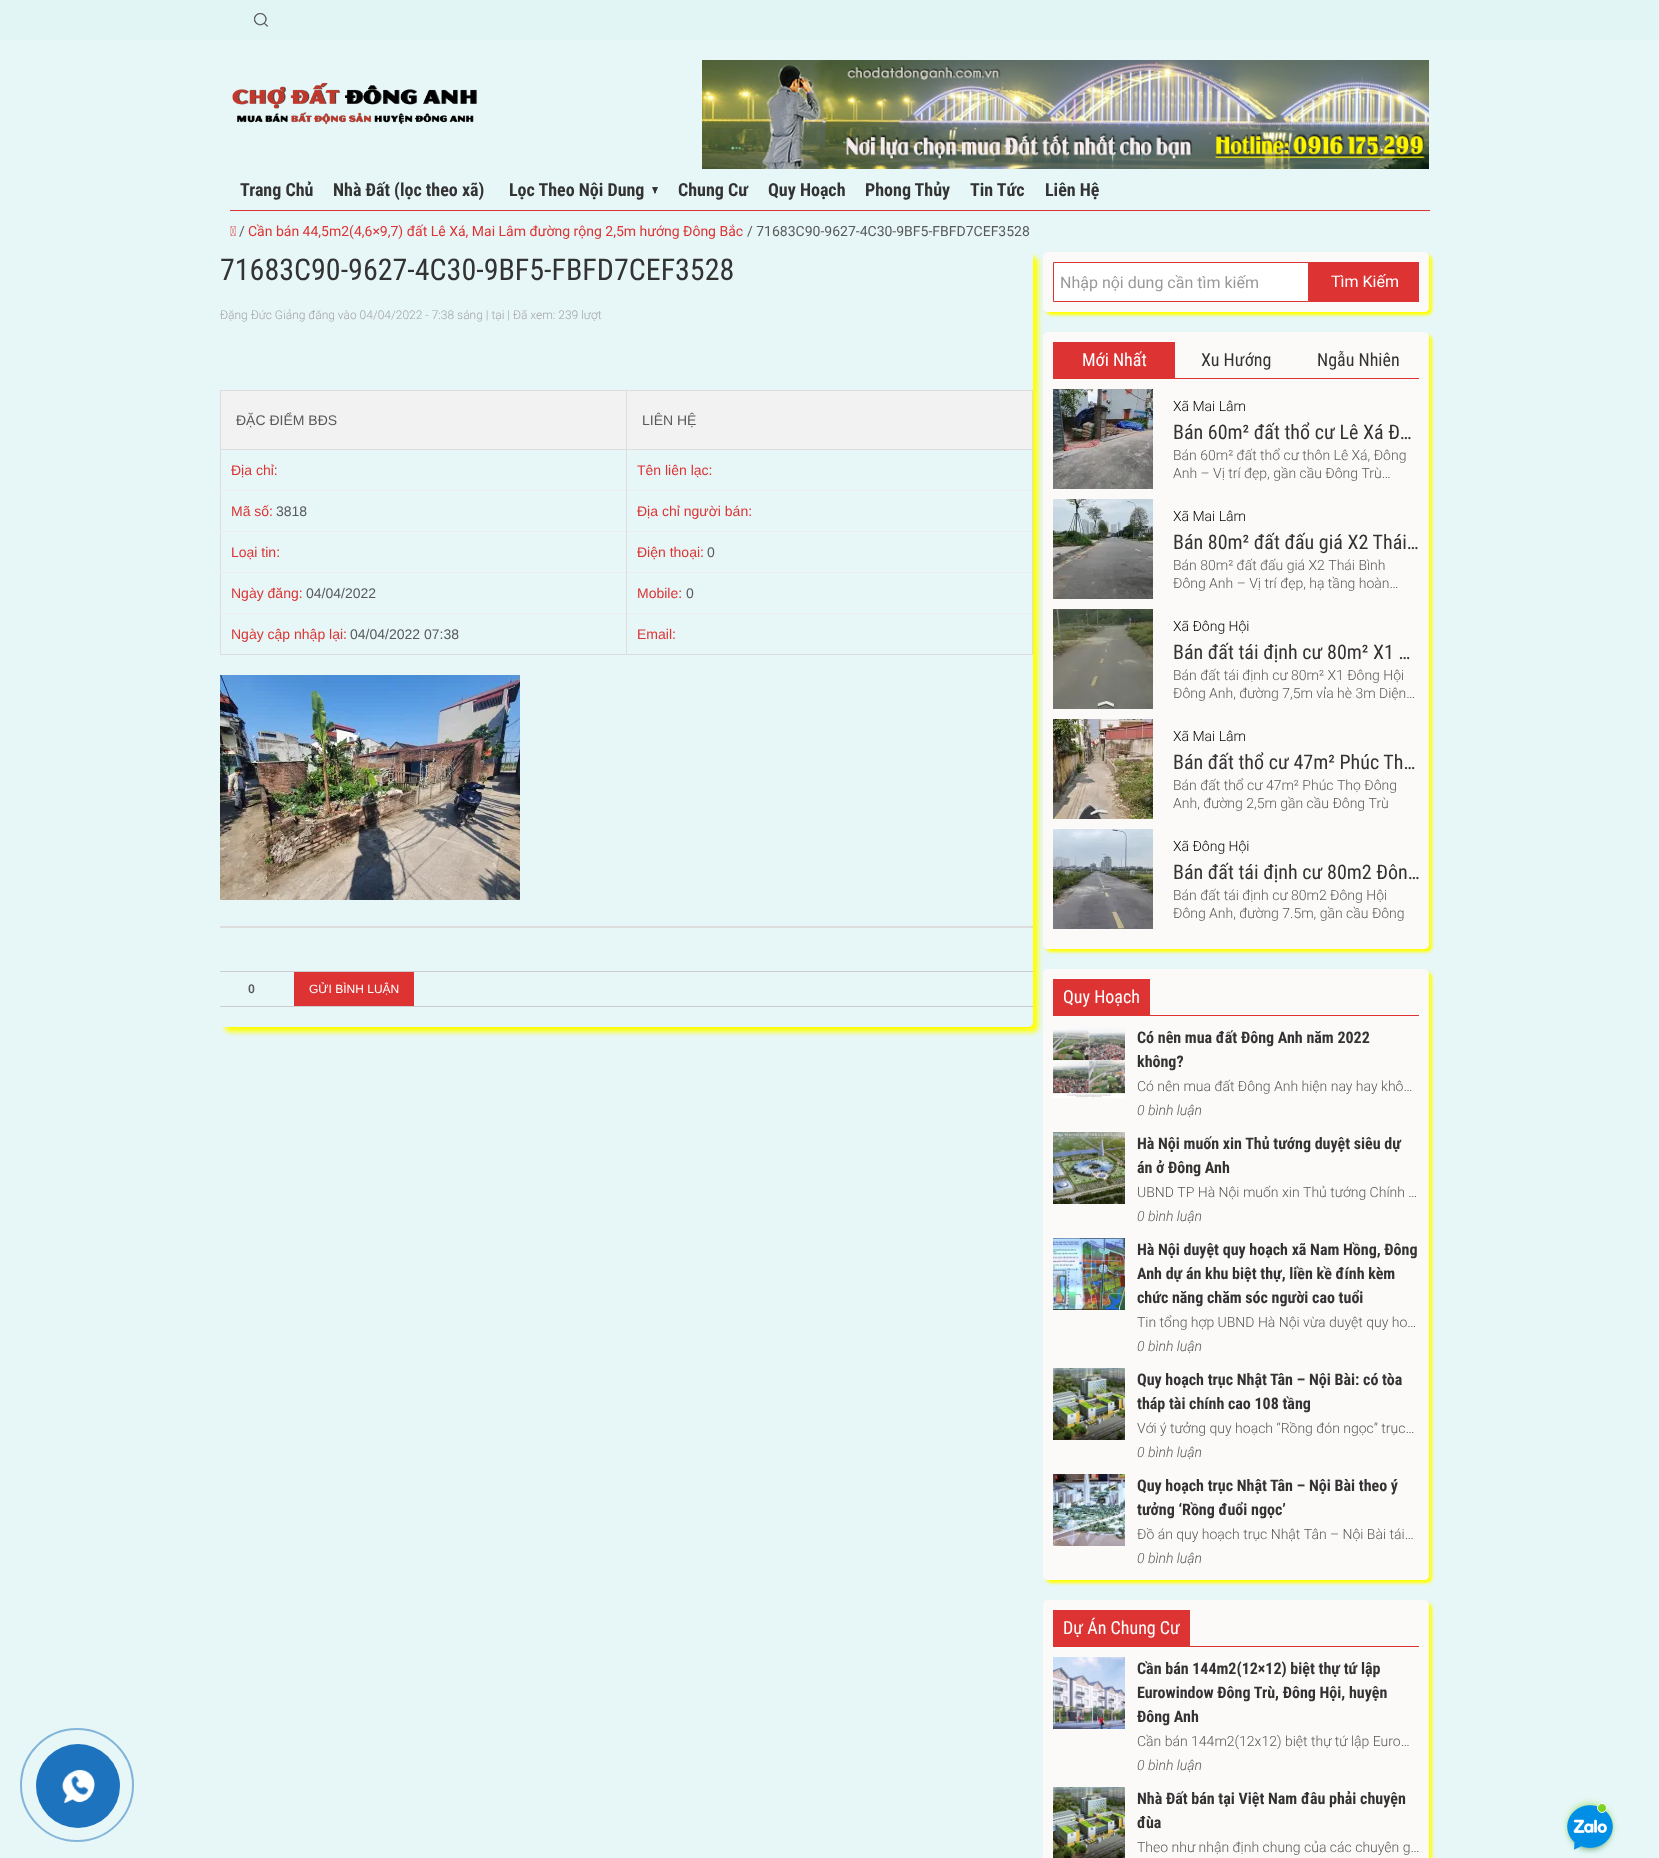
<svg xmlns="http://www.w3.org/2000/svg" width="1659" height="1858">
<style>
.a{font:bold 18px Roboto Condensed;fill:#333}
.b{font:14px Roboto;fill:#595959}
.c{font:14px Roboto;fill:#d33}
.d{font:30px Roboto Condensed;fill:#333}
.e{font:300 12px Roboto;fill:#a3a4a5}
.f{font:14px Liberation Sans;fill:#595959}
.g{font:14px Liberation Sans;fill:#d33}
.h{font:600 12px Roboto;fill:#595959}
.i{font:12px Liberation Sans;fill:#fff}
.j{font:16px Roboto;fill:#999}
.k{font:16px Roboto;fill:#fff}
.l{font:18px Roboto Condensed;fill:#fff}
.m{font:18px Roboto Condensed;fill:#333}
.n{font:300 14px Roboto;fill:#000}
.o{font:20px Roboto Condensed;fill:#333}
.p{font:300 14px Roboto;fill:#595959}
.q{font:bold 16px Roboto Condensed;fill:#333}
.r{font:italic 300 14px Roboto;fill:#595959}
</style>
<defs>
<clipPath id="clip1"><path d="M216 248h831v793h-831zm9 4h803c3 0 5 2 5 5v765c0 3-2 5-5 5h-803c-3 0-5-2-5-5v-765c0-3 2-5 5-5z" clip-rule="evenodd"/></clipPath>
<clipPath id="clip2"><path d="M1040 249h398v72h-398zm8 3h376c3 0 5 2 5 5v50c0 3-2 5-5 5h-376c-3 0-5-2-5-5v-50c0-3 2-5 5-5z" clip-rule="evenodd"/></clipPath>
<clipPath id="clip3"><path d="M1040 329h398v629h-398zm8 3h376c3 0 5 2 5 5v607c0 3-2 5-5 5h-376c-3 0-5-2-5-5v-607c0-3 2-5 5-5z" clip-rule="evenodd"/></clipPath>
<clipPath id="clip4"><path d="M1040 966h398v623h-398zm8 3h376c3 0 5 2 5 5v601c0 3-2 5-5 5h-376c-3 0-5-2-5-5v-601c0-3 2-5 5-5z" clip-rule="evenodd"/></clipPath>
<clipPath id="clip5"><path d="M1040 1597h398v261h-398zm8 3h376c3 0 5 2 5 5v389c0 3-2 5-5 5h-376c-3 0-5-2-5-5v-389c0-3 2-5 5-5z" clip-rule="evenodd"/></clipPath>
</defs>
<rect width="100%" height="100%" fill="#e7f7f7"/>
<path fill="#e1f5f5" d="M0 0h1659v40H0z"/>
<image href="1.png" x="254" y="13" width="14" height="14"/>
<circle fill="none" stroke="#83b5db" stroke-width="2" cx="77" cy="1785" r="56"/>
<circle fill="#1e73be" cx="78" cy="1786" r="42"/>
<image href="2.png" x="62" y="1769" width="33" height="34"/>
<image href="3.png" x="232" y="82" width="246" height="43"/>
<image href="4.png" x="702" y="60" width="727" height="109"/>
<path fill="#d33" d="M230 210h1200v1H230z"/>
<image href="5.png" x="652" y="187" width="6" height="7"/>
<image href="6.png" x="230" y="226" width="6" height="10"/>
<g clip-path="url(#clip1)">
<rect fill="#ff0" filter="blur(2.5px)" x="225" y="257" width="813" height="775" rx="5"/>
</g>
<path fill="#ddd" d="M220 390h813v1H220z"/>
<path fill="#ddd" d="M1032 390h1v59H1032z"/>
<path fill="#ddd" d="M220 654h813v1H220z"/>
<path fill="#ddd" d="M220 390h1v265H220z"/>
<path fill="#f2f2f2" d="M221 391h405v58H221z"/>
<path fill="#ededed" d="M220 490h813v1H220z"/>
<path fill="#ededed" d="M220 531h813v1H220z"/>
<path fill="#ededed" d="M220 572h813v1H220z"/>
<path fill="#ededed" d="M220 613h813v1H220z"/>
<path fill="#ddd" d="M626 613h1v42H626z"/>
<path fill="#ddd" d="M626 572h1v42H626z"/>
<path fill="#ddd" d="M626 531h1v42H626z"/>
<path fill="#ddd" d="M626 449h1v83H626z"/>
<path fill="#ddd" d="M1032 613h1v42H1032z"/>
<path fill="#ddd" d="M1032 572h1v42H1032z"/>
<path fill="#ddd" d="M1032 531h1v42H1032z"/>
<path fill="#ddd" d="M1032 449h1v83H1032z"/>
<path fill="#ddd" d="M626 449h407v1H626z"/>
<path fill="#ddd" d="M626 390h1v60H626z"/>
<path fill="#ddd" d="M220 449h407v1H220z"/>
<path fill="#f2f2f2" d="M627 391h405v58H627z"/>
<image href="7.png" x="220" y="675" width="300" height="225"/>
<path fill="#ddd" d="M220 926h813v2H220z"/>
<path fill="#ccc" d="M220 971h813v1H220z"/>
<path fill="#d33" d="M294 972h120v34H294z"/>
<path fill="#ccc" d="M220 1006h813v1H220z"/>
<g clip-path="url(#clip2)">
<rect fill="#ff0" filter="blur(1.5px)" x="1046" y="255" width="386" height="60" rx="5"/>
</g>
<rect fill="#fff9f9d9" x="1043" y="252" width="386" height="60" rx="5"/>
<path fill="#fff" stroke="#d33" d="M1053.5 262.5h255v39H1053.5z"/>
<path fill="#d33" d="M1309 262h110v40H1309z"/>
<g clip-path="url(#clip3)">
<rect fill="#ff0" filter="blur(1.5px)" x="1046" y="335" width="386" height="617" rx="5"/>
</g>
<rect fill="#fff9f9d9" x="1043" y="332" width="386" height="617" rx="5"/>
<path fill="#d33" d="M1053 342h122v36H1053z"/>
<path fill="#d33" d="M1053 378h366v1H1053z"/>
<image href="8.png" x="1053" y="389" width="100" height="100"/>
<image href="9.png" x="1053" y="499" width="100" height="100"/>
<image href="10.png" x="1053" y="609" width="100" height="100"/>
<image href="11.png" x="1053" y="719" width="100" height="100"/>
<image href="12.png" x="1053" y="829" width="100" height="100"/>
<g clip-path="url(#clip4)">
<rect fill="#ff0" filter="blur(1.5px)" x="1046" y="972" width="386" height="611" rx="5"/>
</g>
<rect fill="#fff9f9d9" x="1043" y="969" width="386" height="611" rx="5"/>
<path fill="#d33" d="M1053 979h97v36H1053z"/>
<path fill="#d33" d="M1053 1015h366v1H1053z"/>
<image href="13.png" x="1053" y="1027" width="72" height="71"/>
<image href="14.png" x="1053" y="1132" width="72" height="72"/>
<image href="15.png" x="1053" y="1238" width="72" height="72"/>
<image href="16.png" x="1053" y="1368" width="72" height="72"/>
<image href="17.png" x="1053" y="1474" width="72" height="72"/>
<g clip-path="url(#clip5)">
<rect fill="#ff0" filter="blur(1.5px)" x="1046" y="1603" width="386" height="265" rx="5"/>
</g>
<rect fill="#fff9f9d9" x="1043" y="1600" width="386" height="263" rx="5"/>
<path fill="#d33" d="M1053 1610h137v36H1053z"/>
<path fill="#d33" d="M1053 1646h366v1H1053z"/>
<image href="18.png" x="1053" y="1657" width="72" height="72"/>
<image href="19.png" x="1053" y="1787" width="72" height="71"/>
<rect fill="#7ed321" filter="blur(4px)" x="1570" y="1806" width="40" height="40" rx="20"/>
<image href="20.png" x="1565" y="1805" width="50" height="49"/>
<circle fill="#7ed321" stroke="#fff" cx="1602" cy="1808" r="4.5"/>
<text class="a" x="240" y="196">Trang Chủ</text>
<text class="a" x="333" y="196">Nhà Đất (lọc theo xã)</text>
<text class="a" x="509" y="196">Lọc Theo Nội Dung</text>
<text class="a" x="678" y="196">Chung Cư</text>
<text class="a" x="768" y="196">Quy Hoạch</text>
<text class="a" x="865" y="196">Phong Thủy</text>
<text class="a" x="970" y="196">Tin Tức</text>
<text class="a" x="1045" y="196">Liên Hệ</text>
<text class="b" x="239" y="236">/</text>
<text class="c" x="248" y="236">Cần bán 44,5m2(4,6×9,7) đất Lê Xá, Mai Lâm đường rộng 2,5m hướng Đông Bắc</text>
<text class="b" x="747" y="236">/ 71683C90-9627-4C30-9BF5-FBFD7CEF3528</text>
<text class="d" x="220" y="280">71683C90-9627-4C30-9BF5-FBFD7CEF3528</text>
<text class="e" x="220" y="319">Đặng Đức Giảng đăng vào 04/04/2022 - 7:38 sáng | tại | Đã xem: 239 lượt</text>
<text class="f" x="236" y="425">ĐẶC ĐIỂM BĐS</text>
<text class="f" x="642" y="425">LIÊN HỆ</text>
<text class="g" x="231" y="475">Địa chỉ:</text>
<text class="g" x="637" y="475">Tên liên lạc:</text>
<text class="g" x="231" y="516">Mã số:</text>
<text class="f" x="276" y="516">3818</text>
<text class="g" x="637" y="516">Địa chỉ người bán:</text>
<text class="g" x="231" y="557">Loại tin:</text>
<text class="g" x="637" y="557">Điện thoại:</text>
<text class="f" x="707" y="557">0</text>
<text class="g" x="231" y="598">Ngày đăng:</text>
<text class="f" x="306" y="598">04/04/2022</text>
<text class="g" x="637" y="598">Mobile:</text>
<text class="f" x="686" y="598">0</text>
<text class="g" x="231" y="639">Ngày cập nhập lại:</text>
<text class="f" x="350" y="639">04/04/2022 07:38</text>
<text class="g" x="637" y="639">Email:</text>
<text class="h" x="248" y="993">0</text>
<text class="i" x="309" y="993">GỬI BÌNH LUẬN</text>
<text class="j" x="1060" y="288">Nhập nội dung cần tìm kiếm</text>
<text class="k" x="1331" y="287">Tìm Kiếm</text>
<text class="l" x="1082" y="366">Mới Nhất</text>
<text class="m" x="1201" y="366">Xu Hướng</text>
<text class="m" x="1317" y="366">Ngẫu Nhiên</text>
<text class="n" x="1173" y="411">Xã Mai Lâm</text>
<text class="o" x="1173" y="439">Bán 60m² đất thổ cư Lê Xá Đ…</text>
<text class="p" x="1173" y="460">Bán 60m² đất thổ cư thôn Lê Xá, Đông</text>
<text class="p" x="1173" y="478">Anh – Vị trí đẹp, gần cầu Đông Trù…</text>
<text class="n" x="1173" y="521">Xã Mai Lâm</text>
<text class="o" x="1173" y="549">Bán 80m² đất đấu giá X2 Thái…</text>
<text class="p" x="1173" y="570">Bán 80m² đất đấu giá X2 Thái Bình</text>
<text class="p" x="1173" y="588">Đông Anh – Vị trí đẹp, hạ tầng hoàn…</text>
<text class="n" x="1173" y="631">Xã Đông Hội</text>
<text class="o" x="1173" y="659">Bán đất tái định cư 80m² X1 …</text>
<text class="p" x="1173" y="680">Bán đất tái định cư 80m² X1 Đông Hội</text>
<text class="p" x="1173" y="698">Đông Anh, đường 7,5m vỉa hè 3m Diện…</text>
<text class="n" x="1173" y="741">Xã Mai Lâm</text>
<text class="o" x="1173" y="769">Bán đất thổ cư 47m² Phúc Th…</text>
<text class="p" x="1173" y="790">Bán đất thổ cư 47m² Phúc Thọ Đông</text>
<text class="p" x="1173" y="808">Anh, đường 2,5m gần cầu Đông Trù</text>
<text class="n" x="1173" y="851">Xã Đông Hội</text>
<text class="o" x="1173" y="879">Bán đất tái định cư 80m2 Đôn…</text>
<text class="p" x="1173" y="900">Bán đất tái định cư 80m2 Đông Hội</text>
<text class="p" x="1173" y="918">Đông Anh, đường 7.5m, gần cầu Đông</text>
<text class="l" x="1063" y="1003">Quy Hoạch</text>
<text class="q" x="1137" y="1043">Có nên mua đất Đông Anh năm 2022</text>
<text class="q" x="1137" y="1067">không?</text>
<text class="p" x="1137" y="1091">Có nên mua đất Đông Anh hiện nay hay khô…</text>
<text class="r" x="1137" y="1115">0 bình luận</text>
<text class="q" x="1137" y="1149">Hà Nội muốn xin Thủ tướng duyệt siêu dự</text>
<text class="q" x="1137" y="1173">án ở Đông Anh</text>
<text class="p" x="1137" y="1197">UBND TP Hà Nội muốn xin Thủ tướng Chính …</text>
<text class="r" x="1137" y="1221">0 bình luận</text>
<text class="q" x="1137" y="1255">Hà Nội duyệt quy hoạch xã Nam Hồng, Đông</text>
<text class="q" x="1137" y="1279">Anh dự án khu biệt thự, liền kề đính kèm</text>
<text class="q" x="1137" y="1303">chức năng chăm sóc người cao tuổi</text>
<text class="p" x="1137" y="1327">Tin tổng hợp UBND Hà Nội vừa duyệt quy ho…</text>
<text class="r" x="1137" y="1351">0 bình luận</text>
<text class="q" x="1137" y="1385">Quy hoạch trục Nhật Tân – Nội Bài: có tòa</text>
<text class="q" x="1137" y="1409">tháp tài chính cao 108 tầng</text>
<text class="p" x="1137" y="1433">Với ý tưởng quy hoạch “Rồng đón ngọc” trục…</text>
<text class="r" x="1137" y="1457">0 bình luận</text>
<text class="q" x="1137" y="1491">Quy hoạch trục Nhật Tân – Nội Bài theo ý</text>
<text class="q" x="1137" y="1515">tưởng ‘Rồng đuổi ngọc’</text>
<text class="p" x="1137" y="1539">Đồ án quy hoạch trục Nhật Tân – Nội Bài tái…</text>
<text class="r" x="1137" y="1563">0 bình luận</text>
<text class="l" x="1063" y="1634">Dự Án Chung Cư</text>
<text class="q" x="1137" y="1674">Cần bán 144m2(12×12) biệt thự tứ lập</text>
<text class="q" x="1137" y="1698">Eurowindow Đông Trù, Đông Hội, huyện</text>
<text class="q" x="1137" y="1722">Đông Anh</text>
<text class="p" x="1137" y="1746">Cần bán 144m2(12x12) biệt thự tứ lập Euro…</text>
<text class="r" x="1137" y="1770">0 bình luận</text>
<text class="q" x="1137" y="1804">Nhà Đất bán tại Việt Nam đâu phải chuyện</text>
<text class="q" x="1137" y="1828">đùa</text>
<text class="p" x="1137" y="1852">Theo như nhận định chung của các chuyên g…</text>
</svg>
